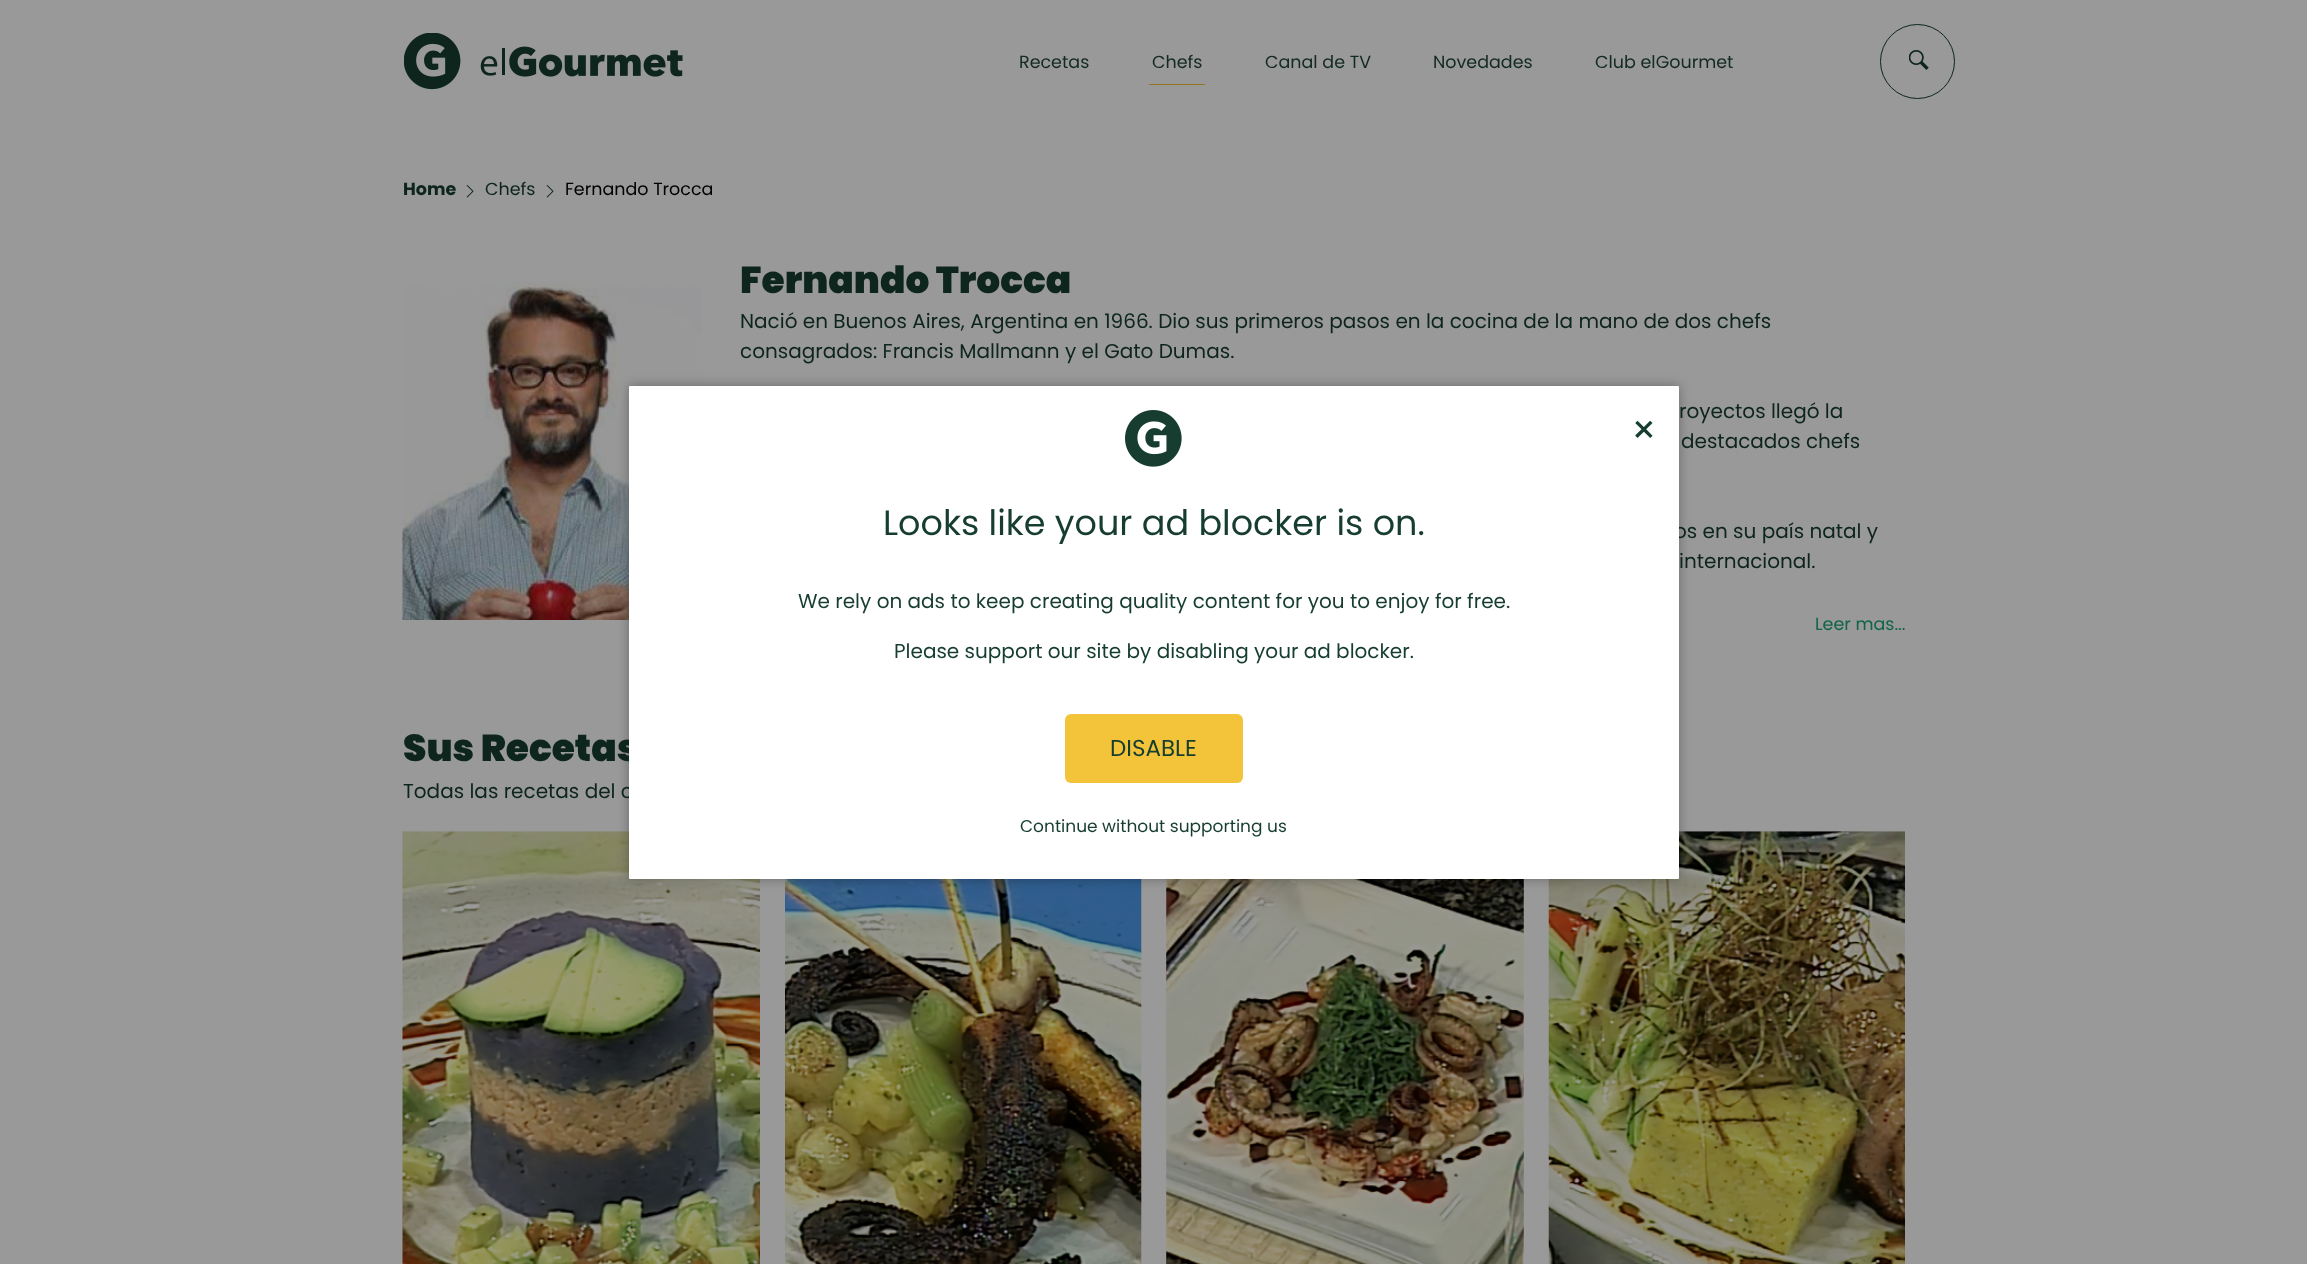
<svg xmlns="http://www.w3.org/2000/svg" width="2307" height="1264">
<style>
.a{font:17.5px Poppins;fill:#132a22}
.b{font:bold 17.5px Poppins;fill:#0d251d}
.c{font:17.5px Poppins;fill:#0d251d}
.d{font:17.5px Poppins;fill:#000}
.e{font:900 37.5px Poppins;fill:#0d251d}
.f{font:20px Poppins;fill:#0d251d}
.g{font:17.5px Poppins;fill:#116449}
.h{font:40px Poppins;fill:#163d30}
.i{font:35px Poppins;fill:#163d30}
.j{font:20px Poppins;fill:#163d30}
.k{font:23px Poppins;fill:#163d30}
.l{font:17px Poppins;fill:#163d30}
</style>
<rect width="100%" height="100%" fill="#999"/>
<image href="1.png" x="404" y="33" width="57" height="57"/>
<image href="2.png" x="480" y="46" width="203" height="31"/>
<path fill="#927622" d="M1149 84h56v1H1149z"/>
<circle fill="none" stroke="#0d251d" cx="1917.5" cy="61.5" r="37"/>
<image href="3.png" x="1909" y="50" width="20" height="20"/>
<image href="4.png" x="466" y="185" width="8" height="13"/>
<image href="4.png" x="546" y="185" width="8" height="13"/>
<image href="5.png" x="402" y="281" width="301" height="339"/>
<image href="6.png" x="402" y="831" width="358" height="433"/>
<image href="7.png" x="785" y="879" width="357" height="385"/>
<image href="8.png" x="1166" y="879" width="358" height="385"/>
<image href="9.png" x="1548" y="831" width="357" height="433"/>
<rect fill="#0000004d" filter="blur(6px)" x="629" y="386" width="1050" height="493" rx="1"/>
<text class="a" x="1019" y="68">Recetas</text>
<text class="a" x="1152" y="68">Chefs</text>
<text class="a" x="1265" y="68">Canal de TV</text>
<text class="a" x="1433" y="68">Novedades</text>
<text class="a" x="1595" y="68">Club elGourmet</text>
<text class="b" x="403" y="195">Home</text>
<text class="c" x="485" y="195">Chefs</text>
<text class="d" x="565" y="195">Fernando Trocca</text>
<text class="e" x="740" y="293">Fernando Trocca</text>
<text class="f" x="740" y="328">Nació en Buenos Aires, Argentina en 1966. Dio sus primeros pasos en la cocina de la mano de dos chefs</text>
<text class="f" x="740" y="358">consagrados: Francis Mallmann y el Gato Dumas.</text>
<text class="f" x="1679" y="418">royectos llegó la</text>
<text class="f" x="1681" y="448">destacados chefs</text>
<text class="f" x="1674" y="538">os en su país natal y</text>
<text class="f" x="1679" y="568">internacional.</text>
<text class="g" x="1815" y="630">Leer mas...</text>
<text class="e" x="403" y="761">Sus Recetas</text>
<text class="f" x="403" y="798">Todas las recetas del c</text>
<rect fill="#fff" x="629" y="386" width="1050" height="493" rx="1"/>
<image href="10.png" x="1125" y="410" width="57" height="57"/>
<text class="h" x="1631" y="444">×</text>
<text class="i" x="883" y="535">Looks like your ad blocker is on.</text>
<text class="j" x="798" y="608">We rely on ads to keep creating quality content for you to enjoy for free.</text>
<text class="j" x="894" y="658">Please support our site by disabling your ad blocker.</text>
<rect fill="#f3c439" x="1065" y="714" width="178" height="69" rx="6"/>
<text class="k" x="1110" y="756">DISABLE</text>
<text class="l" x="1020" y="832">Continue without supporting us</text>
</svg>
